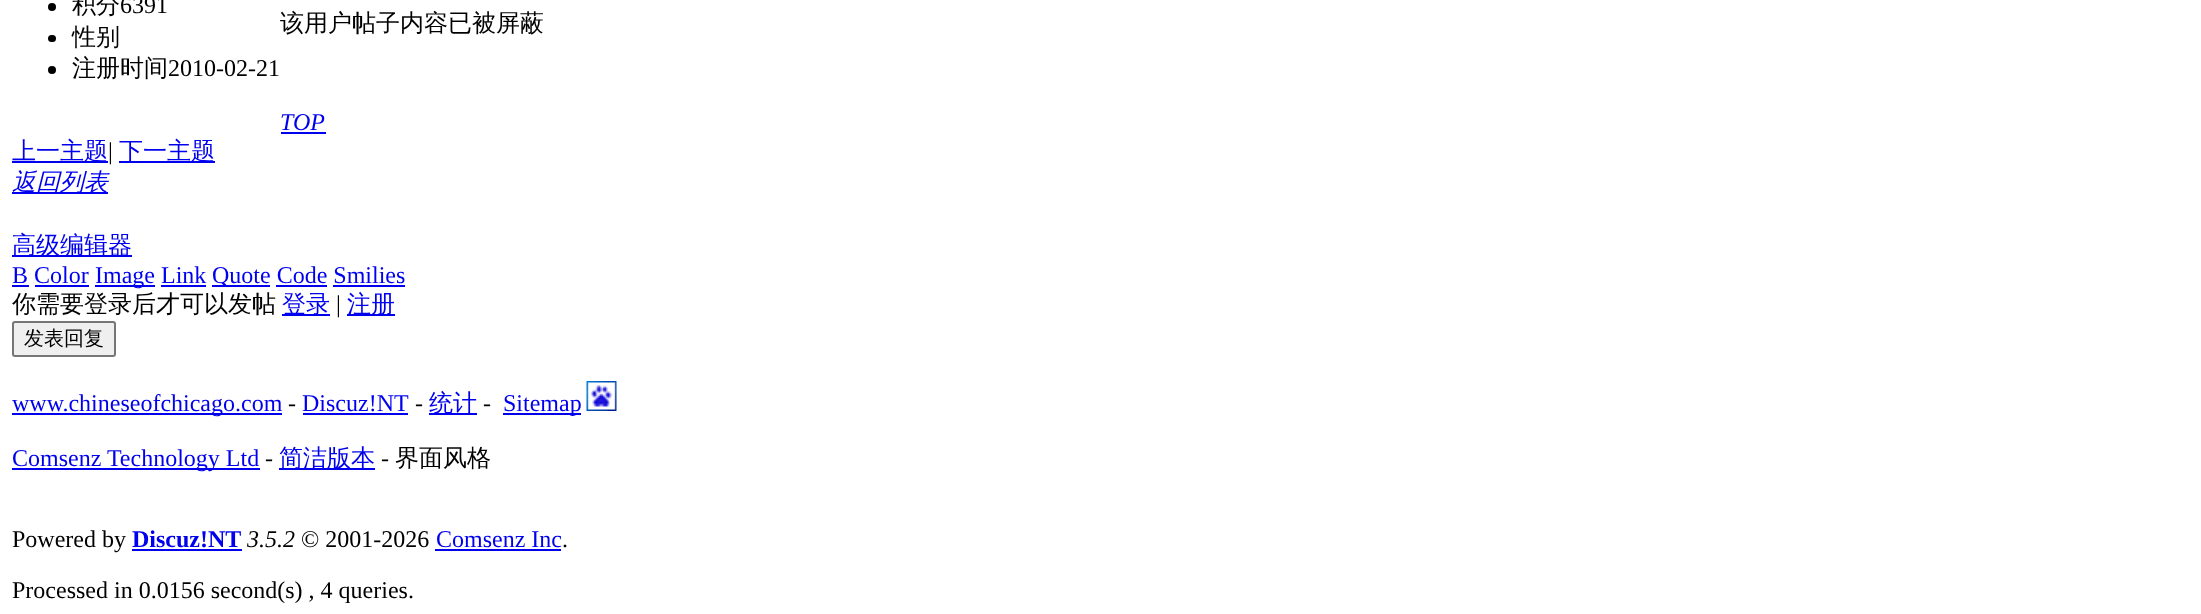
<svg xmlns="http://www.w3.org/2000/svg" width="2201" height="614">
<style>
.a{font:500 24px WenQuanYi Zen Hei;fill:#000}
.b{font:24px Liberation Serif;fill:#000}
.c{font:italic 24px Liberation Serif;fill:#00e}
.d{font:500 24px WenQuanYi Zen Hei;fill:#00e}
.e{font:italic 500 24px WenQuanYi Zen Hei;fill:#00e}
.f{font:24px Liberation Serif;fill:#00e}
.g{font:500 20px WenQuanYi Zen Hei;fill:#000}
.h{font:bold 24px Liberation Serif;fill:#00e}
.i{font:italic 24px Liberation Serif;fill:#000}
</style>
<rect width="100%" height="100%" fill="#fff"/>
<circle fill="#000" cx="52" cy="7" r="4"/>
<rect fill="#000" x="48" y="35" width="8" height="7" rx="3.5"/>
<circle fill="#000" cx="52" cy="70" r="4"/>
<path fill="#00e" d="M281 132h45v2H281z"/>
<path fill="#00e" d="M12 161h96v2H12z"/>
<path fill="#00e" d="M119 161h96v2H119z"/>
<path fill="#00e" d="M12 192h96v2H12z"/>
<path fill="#00e" d="M12 255h120v2H12z"/>
<path fill="#00e" d="M12 285h17v2H12z"/>
<path fill="#00e" d="M95 285h60v2H95z"/>
<path fill="#00e" d="M212 285h58v2H212z"/>
<path fill="#00e" d="M35 285h54v2H35z"/>
<path fill="#00e" d="M161 285h45v2H161z"/>
<path fill="#00e" d="M276 285h51v2H276z"/>
<path fill="#00e" d="M333 285h72v2H333z"/>
<path fill="#00e" d="M282 314h48v2H282z"/>
<path fill="#00e" d="M347 314h48v2H347z"/>
<rect fill="#efefef" stroke="#767676" stroke-width="2" x="13" y="322" width="102" height="34" rx="2"/>
<path fill="#00e" d="M12 413h270v2H12z"/>
<path fill="#00e" d="M303 413h105v2H303z"/>
<path fill="#00e" d="M429 413h48v2H429z"/>
<path fill="#00e" d="M503 413h78v2H503z"/>
<image href="1.png" x="586" y="381" width="31" height="30"/>
<path fill="#00e" d="M12 468h248v2H12z"/>
<path fill="#00e" d="M279 468h96v2H279z"/>
<path fill="#00e" d="M132 549h110v2H132z"/>
<path fill="#00e" d="M435 549h126v2H435z"/>
<text class="a" x="72" y="13">积分</text>
<text class="b" x="120" y="13">6391</text>
<text class="a" x="72" y="45">性别</text>
<text class="a" x="72" y="76">注册时间</text>
<text class="b" x="168" y="76">2010-02-21</text>
<text class="a" x="280" y="31">该用户帖子内容已被屏蔽</text>
<text class="c" x="280" y="130">TOP</text>
<text class="d" x="12" y="159">上一主题</text>
<text class="b" x="108" y="159">|</text>
<text class="d" x="119" y="159">下一主题</text>
<text class="e" x="12" y="190">返回列表</text>
<text class="d" x="12" y="253">高级编辑器</text>
<text class="f" x="12" y="283">B Color</text>
<text class="f" x="95" y="283">Image Link</text>
<text class="f" x="212" y="283">Quote Code Smilies</text>
<text class="a" x="12" y="312">你需要登录后才可以发帖</text>
<text class="d" x="282" y="312">登录</text>
<text class="b" x="336" y="312">|</text>
<text class="d" x="347" y="312">注册</text>
<text class="g" x="24" y="345">发表回复</text>
<text class="f" x="12" y="411">www.chineseofchicago.com</text>
<text class="b" x="288" y="411">-</text>
<text class="f" x="302" y="411">Discuz!NT</text>
<text class="b" x="415" y="411">-</text>
<text class="d" x="429" y="411">统计</text>
<text class="b" x="483" y="411">-</text>
<text class="f" x="503" y="411">Sitemap</text>
<text class="f" x="12" y="466">Comsenz Technology Ltd</text>
<text class="b" x="265" y="466">-</text>
<text class="d" x="279" y="466">简洁版本</text>
<text class="b" x="381" y="466">-</text>
<text class="a" x="395" y="466">界面风格</text>
<text class="b" x="12" y="547">Powered by</text>
<text class="h" x="132" y="547">Discuz!NT</text>
<text class="i" x="247" y="547">3.5.2</text>
<text class="b" x="301" y="547">© 2001-2026</text>
<text class="f" x="436" y="547">Comsenz Inc</text>
<text class="b" x="562" y="547">.</text>
<text class="b" x="12" y="598">Processed in 0.0156 second(s) , 4 queries.</text>
</svg>
